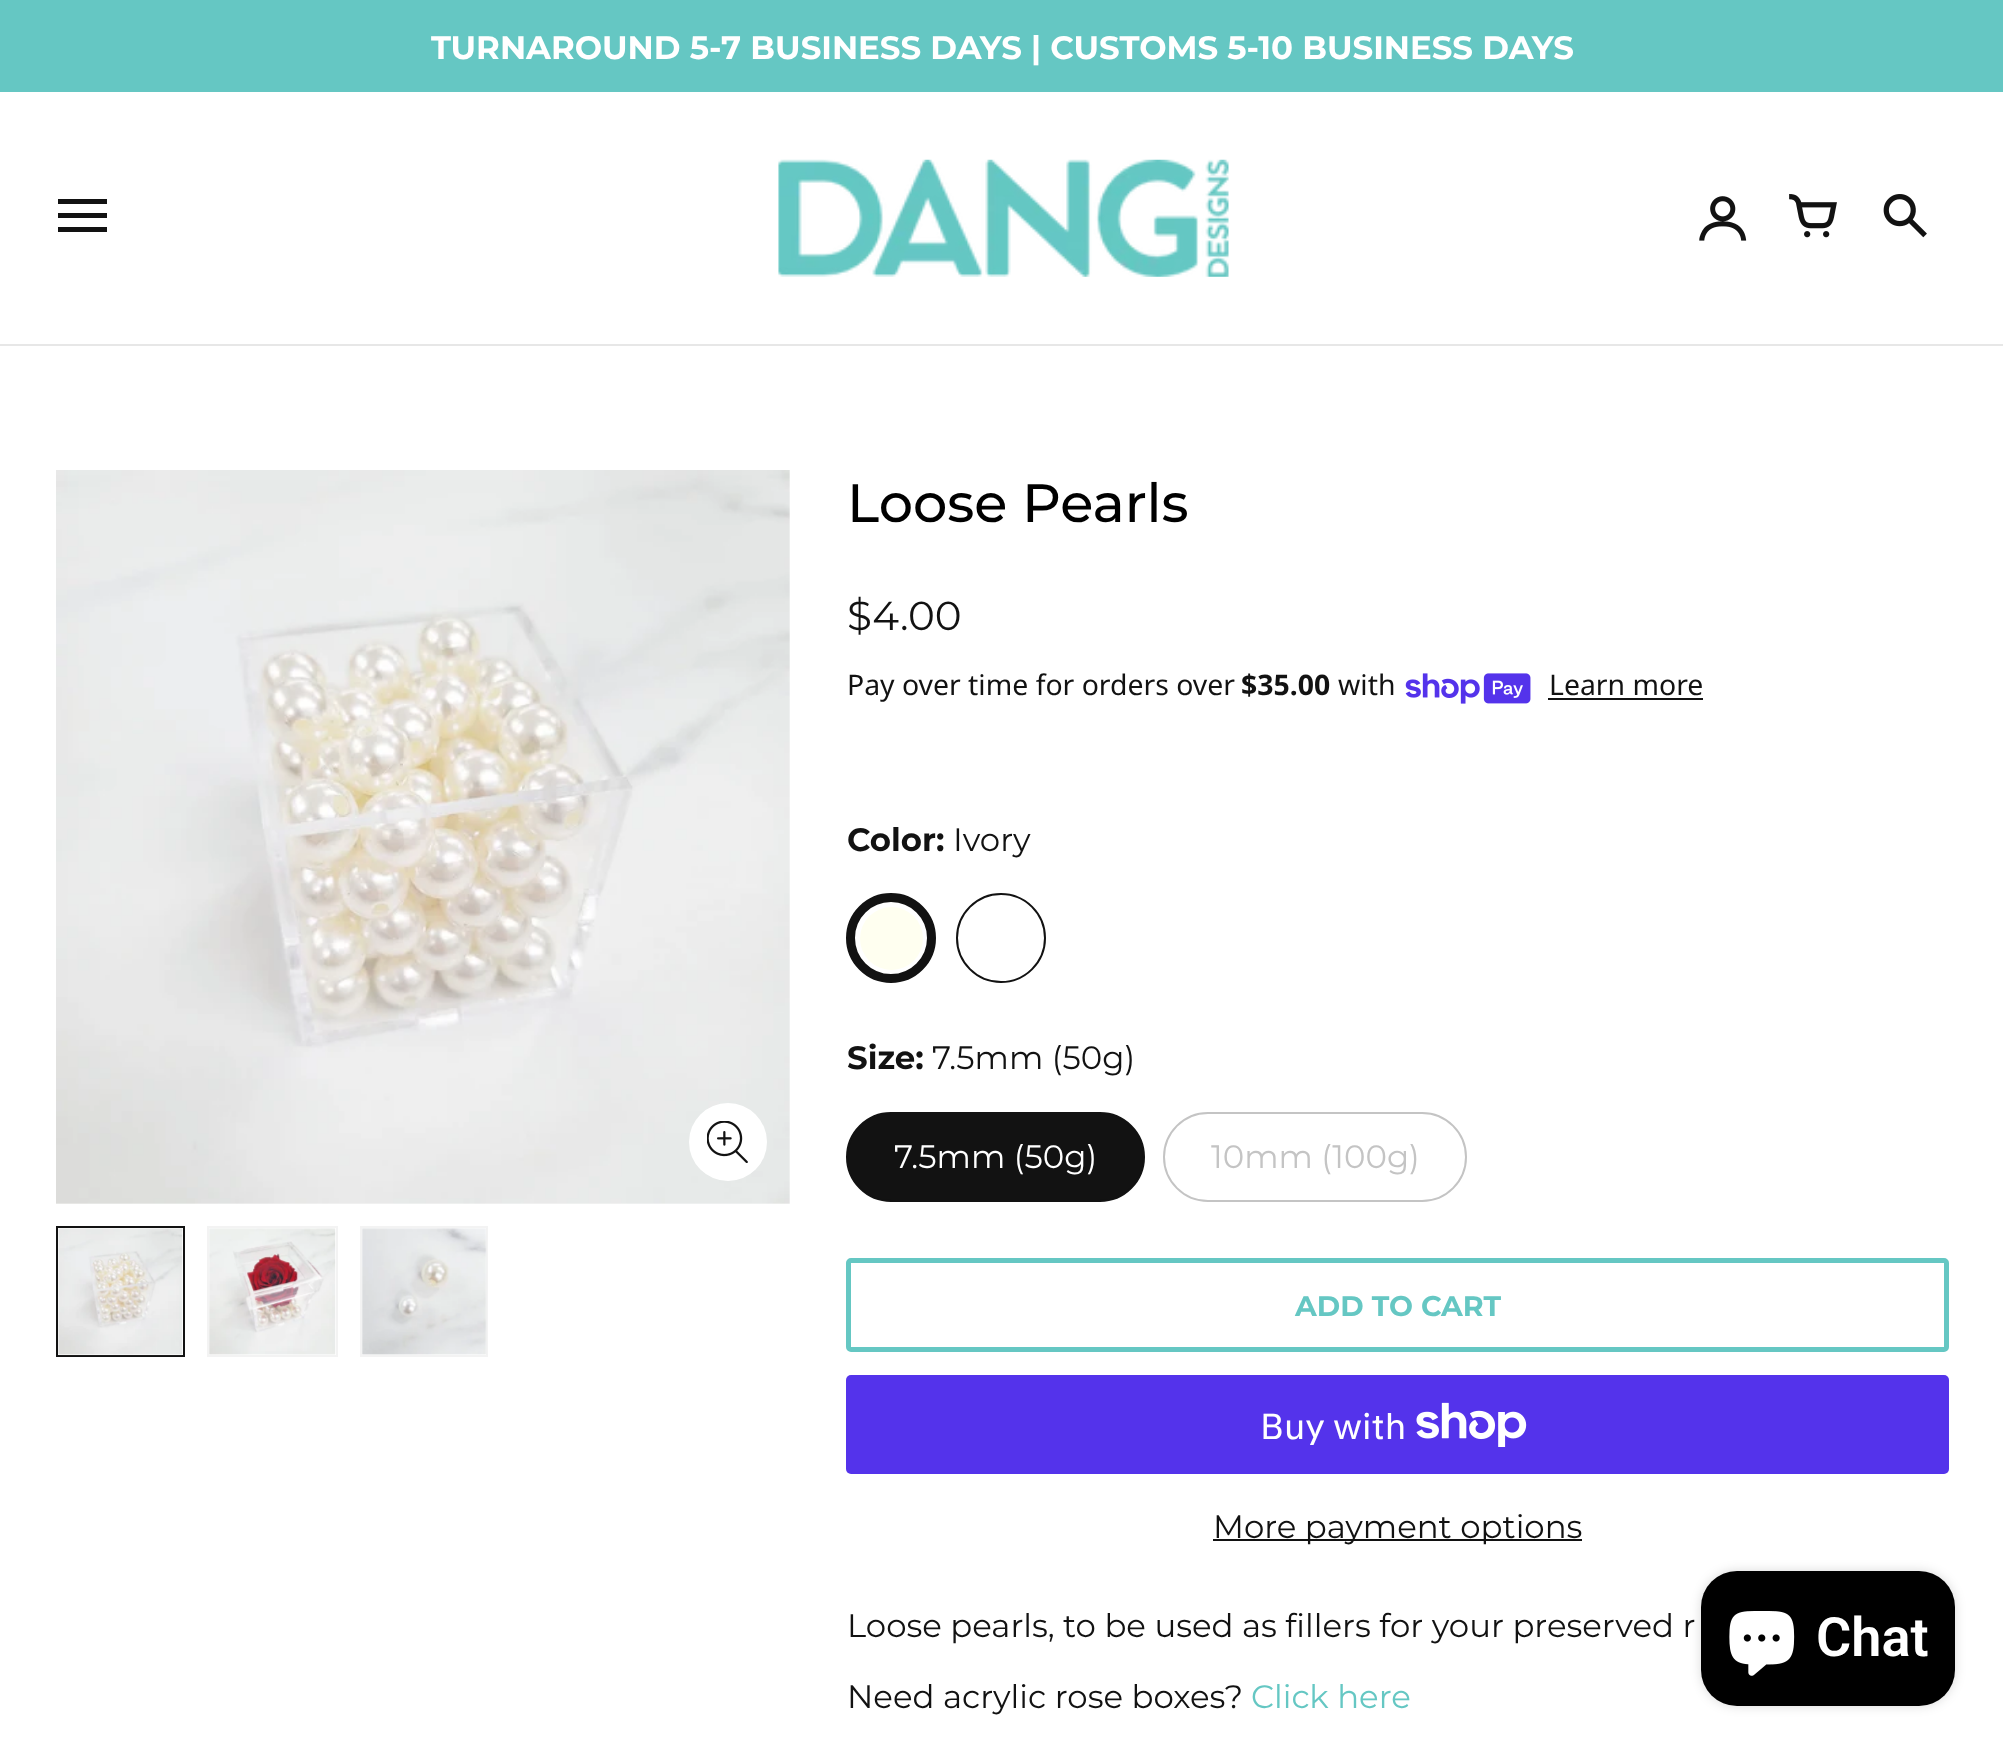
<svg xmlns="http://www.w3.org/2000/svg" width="2003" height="1752">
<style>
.a{font:bold 32.4px Montserrat;fill:#fff}
.b{font:500 54px Montserrat;fill:#000}
.c{font:40.5px Montserrat;fill:#121212}
.d{font:28.4px Noto Sans;fill:#121212}
.e{font:bold 28.4px Noto Sans;fill:#121212}
.f{font:bold 32.4px Montserrat;fill:#121212}
.g{font:32.4px Montserrat;fill:#121212}
.h{font:32.4px Montserrat;fill:#fff}
.i{font:32.4px Montserrat;fill:#c4c4c4}
.j{font:bold 28.4px Montserrat;fill:#65c7c3}
.k{font:36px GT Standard;fill:#fff}
.l{font:32.4px Montserrat;fill:#65c7c3}
.m{font:600 54px Roboto;fill:#fff}
</style>
<rect width="100%" height="100%" fill="#fff"/>
<path fill="#65c7c3" d="M0 0h2003v92H0z"/>
<path fill="#e7e7e7" d="M0 344h2003v2H0z"/>
<path fill="#121212" d="M58 199h49v5h-49zm0 14h49v5h-49zm0 14h49v5h-49zm0 0h0z"/>
<image href="1.png" x="778" y="159" width="451" height="118"/>
<image href="2.png" x="1699" y="196" width="48" height="45"/>
<image href="3.png" x="1789" y="194" width="48" height="44"/>
<image href="4.png" x="1883" y="194" width="44" height="44"/>
<image href="5.png" x="56" y="470" width="734" height="734"/>
<circle fill="#fff" cx="728" cy="1142" r="39"/>
<image href="6.png" x="707" y="1121" width="41" height="42"/>
<path fill="none" stroke="#121212" stroke-width="2" d="M57 1227h127v129H57z"/>
<image href="7.png" x="58" y="1228" width="125" height="128"/>
<path fill="none" stroke="#f3f3f3" stroke-width="2" d="M208 1227h129v129H208z"/>
<image href="8.png" x="209" y="1228" width="127" height="127"/>
<path fill="none" stroke="#f3f3f3" stroke-width="2" d="M361 1227h126v129H361z"/>
<image href="9.png" x="362" y="1228" width="125" height="127"/>
<image href="10.png" x="1405" y="673" width="126" height="31"/>
<path fill="#121212" d="M1548 698h155v2H1548z"/>
<circle fill="none" stroke="#121212" stroke-width="9" cx="891" cy="938" r="40.5"/>
<circle fill="#fffff0" cx="891.5" cy="938.5" r="31.5"/>
<circle fill="none" stroke="#121212" stroke-width="2" cx="1001" cy="938" r="44"/>
<rect fill="#121212" stroke="#121212" stroke-width="2" x="847" y="1113" width="297" height="88" rx="44"/>
<rect fill="none" stroke="#c4c4c4" stroke-width="2" x="1164" y="1113" width="302" height="88" rx="44"/>
<rect fill="none" stroke="#65c7c3" stroke-width="5" x="848.5" y="1260.5" width="1098" height="89" rx="2.5"/>
<rect fill="#5433eb" x="846" y="1375" width="1103" height="99" rx="5"/>
<image href="11.png" x="1416" y="1402" width="111" height="45"/>
<path fill="#121212" d="M1213 1539h369v2H1213z"/>
<rect fill="#00000026" filter="blur(5.5px)" x="1701" y="1571" width="254" height="135" rx="36"/>
<rect fill="#000" x="1701" y="1571" width="254" height="135" rx="36"/>
<image href="12.png" x="1729" y="1611" width="66" height="65"/>
<text class="a" x="431" y="59">TURNAROUND 5-7 BUSINESS DAYS | CUSTOMS 5-10 BUSINESS DAYS</text>
<text class="b" x="847" y="522">Loose Pearls</text>
<text class="c" x="847" y="630">$4.00</text>
<text class="d" x="847" y="695">Pay over time for orders over</text>
<text class="e" x="1241" y="695">$35.00</text>
<text class="d" x="1338" y="695">with</text>
<text class="d" x="1549" y="695">Learn more</text>
<text class="f" x="847" y="851">Color:</text>
<text class="g" x="953" y="851">Ivory</text>
<text class="f" x="847" y="1069">Size:</text>
<text class="g" x="932" y="1069">7.5mm (50g)</text>
<text class="h" x="894" y="1168">7.5mm (50g)</text>
<text class="i" x="1211" y="1168">10mm (100g)</text>
<text class="j" x="1295" y="1316">ADD TO CART</text>
<text class="k" x="1260" y="1439">Buy with</text>
<text class="g" x="1213" y="1538">More payment options</text>
<text class="g" x="847" y="1637">Loose pearls, to be used as fillers for your preserved r</text>
<text class="g" x="847" y="1708">Need acrylic rose boxes?</text>
<text class="l" x="1251" y="1708">Click here</text>
<text class="m" x="1816" y="1656">Chat</text>
</svg>
